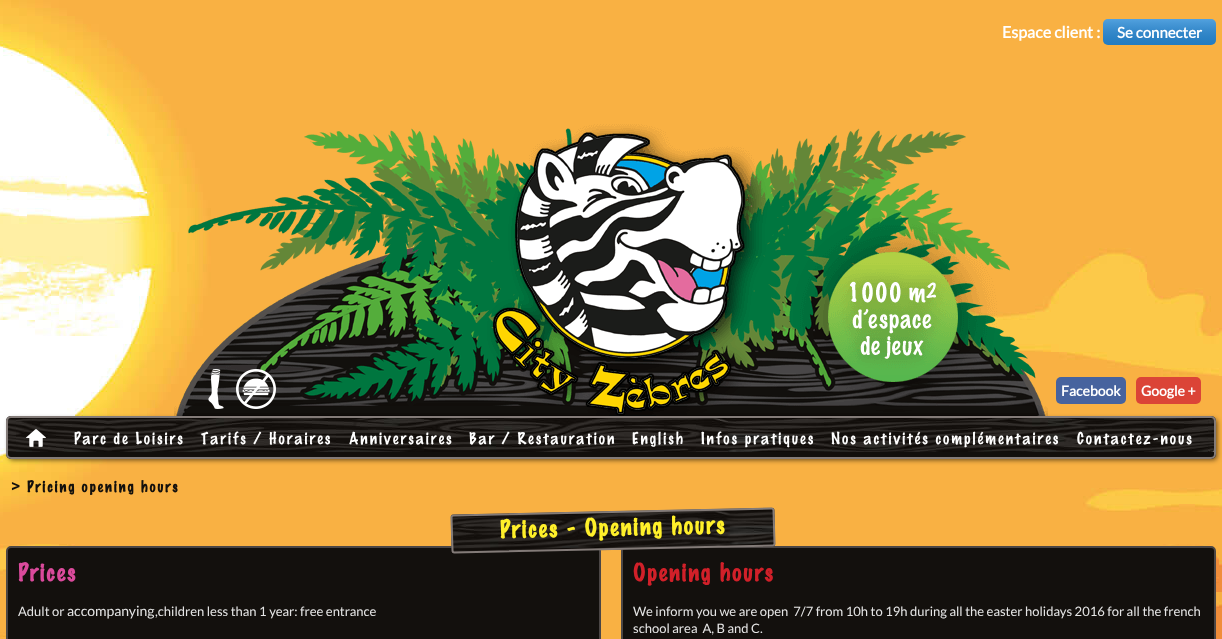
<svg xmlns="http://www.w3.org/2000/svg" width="1222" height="639">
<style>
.a{font:bold 16px Lato;fill:#fff}
.b{font:bold 15px Lato;fill:#fff}
.c{font:bold 14px Lato;fill:#fff}
.d{font:500 15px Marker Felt;letter-spacing:2px;fill:#fff}
.e{font:bold 18px Marker Felt;letter-spacing:2px;fill:#13100d}
.f{font:bold 14px Marker Felt;letter-spacing:2px;fill:#13100d}
.g{font:bold 22px Marker Felt;letter-spacing:2px;fill:#fff02a}
.h{font:bold 22px Marker Felt;letter-spacing:2px;fill:#db4a9c}
.i{font:13px Lato;fill:#e5e5e5}
.j{font:14px Lato;fill:#e5e5e5}
.k{font:bold 22px Marker Felt;letter-spacing:2px;fill:#d12029}
</style>
<defs>
<linearGradient id="g1" gradientUnits="userSpaceOnUse" x1="1160" y1="19" x2="1160" y2="45"><stop offset="0" stop-color="#fff" stop-opacity="0.2"/><stop offset="1" stop-color="#000" stop-opacity="0.1"/></linearGradient>
</defs>
<rect width="100%" height="100%" fill="#fff"/>
<image href="1.png" x="0" y="0" width="1222" height="639"/>
<rect fill="#278ad7" x="1103" y="19" width="113" height="26" rx="5"/>
<rect fill="url(#g1)" x="1103" y="19" width="113" height="26" rx="5"/>
<image href="2.png" x="174" y="124" width="874" height="292"/>
<image href="3.png" x="208" y="369" width="16" height="40"/>
<image href="4.png" x="236" y="369" width="40" height="40"/>
<rect fill="#47639e" x="1056" y="377" width="70" height="27" rx="5"/>
<rect fill="#db4437" x="1136" y="377" width="65" height="27" rx="5"/>
<rect fill="#00000099" filter="blur(2.5px)" x="9" y="419" width="1208" height="41" rx="4"/>
<rect fill="#120f0c" x="6" y="416" width="1210" height="43" rx="5"/>
<image href="5.png" x="8" y="418" width="1206" height="34"/>
<rect fill="none" stroke="#837b78" stroke-width="2" x="7" y="417" width="1208" height="41" rx="4"/>
<image href="6.png" x="26" y="429" width="20" height="18"/>
<rect fill="#13100d" stroke="#4b4645" stroke-width="2" x="7" y="547" width="593" height="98" rx="4"/>
<rect fill="#13100d" stroke="#4b4645" stroke-width="2" x="622" y="547" width="593" height="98" rx="4"/>
<image href="7.png" x="450" y="507" width="326" height="46"/>
<path fill="none" stroke="#837b78" stroke-width="2" d="M453.5 515.5l318-7c1 0 2 1 2 2l1 33c0 1-1 2-2 2l-318 7c-1 0-2-1-2-2l-1-33c0-1 1-2 2-2z"/>
<text class="a" x="1002" y="38">Espace client :</text>
<text class="b" x="1117" y="38">Se connecter</text>
<text class="c" x="1061" y="396">Facebook</text>
<text class="c" x="1141" y="396">Google +</text>
<text class="d" x="74" y="444">Parc de Loisirs</text>
<text class="d" x="201" y="444">Tarifs / Horaires</text>
<text class="d" x="349" y="444">Anniversaires</text>
<text class="d" x="469" y="444">Bar / Restauration</text>
<text class="d" x="632" y="444">English</text>
<text class="d" x="701" y="444">Infos pratiques</text>
<text class="d" x="831" y="444">Nos activités complémentaires</text>
<text class="d" x="1077" y="444">Contactez-nous</text>
<text class="e" x="11" y="492">&gt;</text>
<text class="f" x="27" y="492">Pricing opening hours</text>
<text class="g" x="500" y="538" transform="rotate(-1.2 500 538)">Prices - Opening hours</text>
<text class="h" x="18" y="581">Prices</text>
<text class="i" x="18" y="616">Adult or</text>
<text class="j" x="67" y="616">accompanying</text>
<text class="i" x="155" y="616">,children less than 1 year: free entrance</text>
<text class="k" x="633" y="581">Opening hours</text>
<text class="i" xml:space="preserve" x="633" y="616">We inform you we are open  7/7 from 10h to 19h during all the easter holidays 2016 for all the french</text>
<text class="i" xml:space="preserve" x="633" y="633">school area  A, B and C.</text>
</svg>
